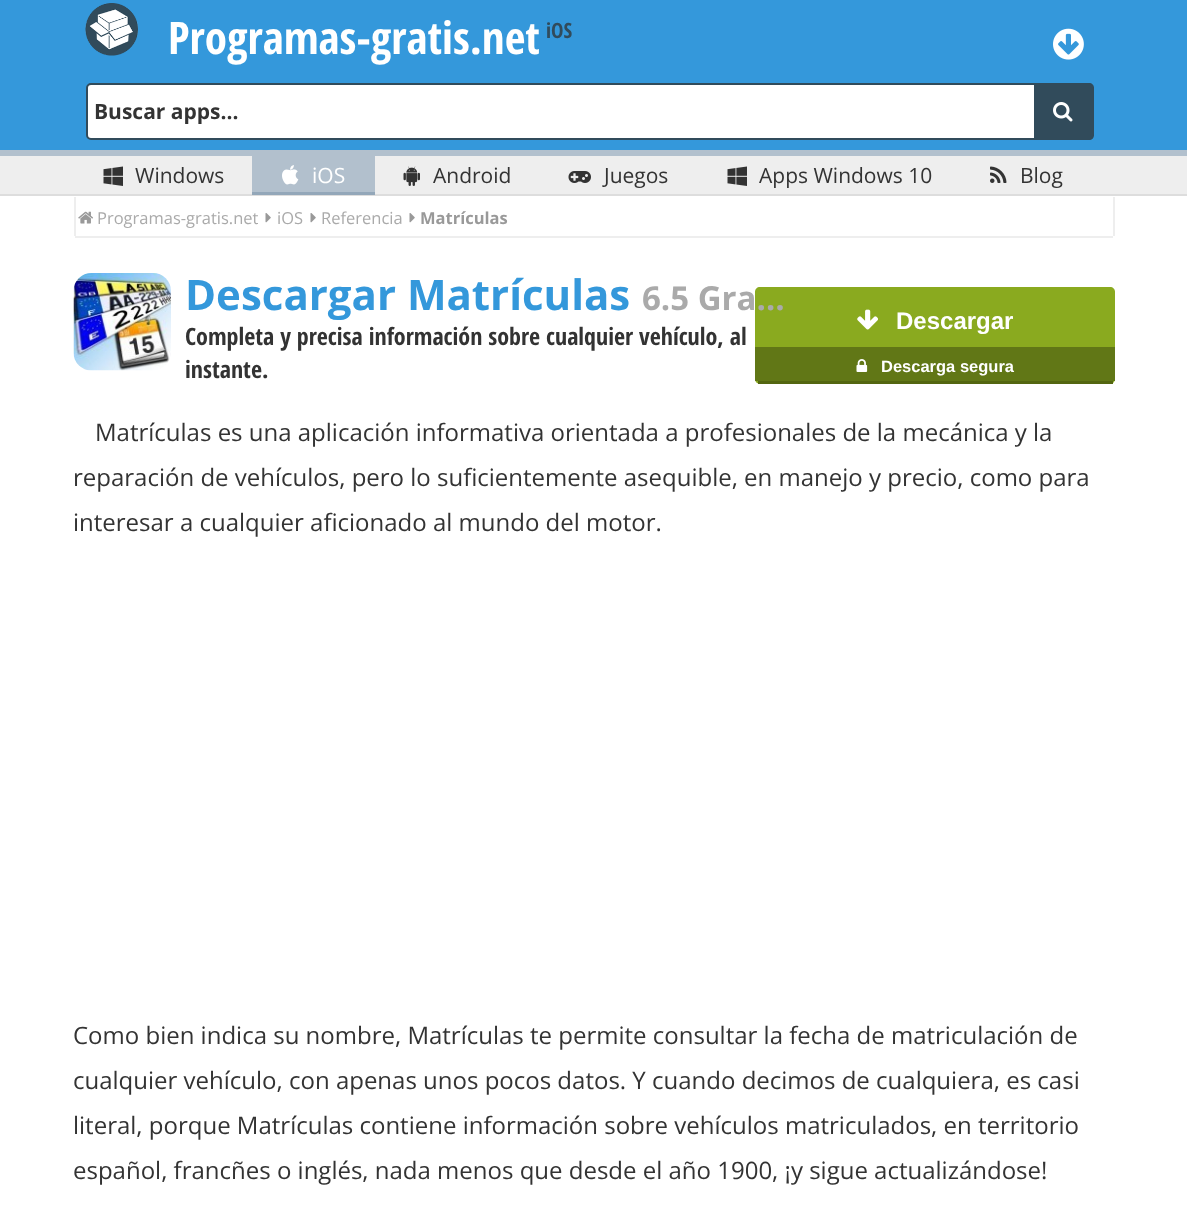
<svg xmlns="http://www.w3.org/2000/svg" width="1187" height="1210">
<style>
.a{font:bold 45px Open Sans Condensed;fill:#fff}
.b{font:bold 21px Open Sans Condensed;fill:#314b5b}
.c{font:bold 21px Open Sans;fill:#333}
.d{font:21px Open Sans;fill:#333}
.e{font:21px Open Sans;fill:#fff}
.f{font:16.5px Open Sans;fill:#aaa}
.g{font:bold 16.5px Open Sans;fill:#999}
.h{font:bold 42px Open Sans;fill:#3498db}
.i{font:bold 33px Open Sans;fill:#aaa}
.j{font:bold 24px Open Sans Condensed;fill:#333}
.k{font:bold 24px Liberation Sans;fill:#fff}
.l{font:bold 16.5px Liberation Sans;fill:#fff}
.m{font:24px Open Sans;fill:#333}
</style>
<defs>
<clipPath id="clip1"><rect x="755" y="287" width="360" height="97" rx="5"/></clipPath>
</defs>
<rect width="100%" height="100%" fill="#fff"/>
<path fill="#3498db" d="M0 0h1187v150H0z"/>
<image href="1.png" x="85" y="3" width="53" height="53"/>
<image href="2.png" x="1053" y="28" width="31" height="32"/>
<rect fill="#fff" stroke="#314b5b" stroke-width="2" x="87" y="84" width="953" height="55" rx="4"/>
<path fill="#314b5b" d="M1034 83h55c3 0 5 2 5 5v47c0 3-2 5-5 5h-55z"/>
<image href="3.png" x="1053" y="102" width="20" height="20"/>
<path fill="#eee" d="M0 156h1187v38H0z"/>
<path fill="#b2c0cd" d="M0 150h1187v6H0z"/>
<path fill="#ddd" d="M0 194h1187v2H0z"/>
<image href="4.png" x="103" y="166" width="20" height="20"/>
<path fill="#b2c0cd" d="M252 156h123v36H252z"/>
<path fill="#93a7b9" d="M252 192h123v3H252z"/>
<image href="5.png" x="282" y="165" width="17" height="20"/>
<image href="6.png" x="403" y="166" width="17" height="20"/>
<image href="7.png" x="568" y="171" width="23" height="12"/>
<image href="4.png" x="727" y="166" width="20" height="20"/>
<image href="8.png" x="990" y="166" width="17" height="17"/>
<path fill="#eee" d="M1113 197h2v39H1113z"/>
<path fill="#eee" d="M75 236h1038v2H75z"/>
<path fill="#eee" d="M74 197h2v39H74z"/>
<image href="9.png" x="78" y="211" width="15" height="13"/>
<image href="10.png" x="265" y="213" width="6" height="10"/>
<image href="10.png" x="310" y="213" width="6" height="10"/>
<image href="10.png" x="409" y="213" width="6" height="10"/>
<image href="11.png" x="73" y="273" width="98" height="98"/>
<path fill="#8aaa1f" d="M760 287h350c3 0 5 2 5 5v55h-360v-55c0-3 2-5 5-5z"/>
<path fill="#617716" d="M755 347h360v34H755z"/>
<g clip-path="url(#clip1)">
<path fill="#8aaa1f" d="M755 381h360v3H755z"/>
</g>
<path fill="#536610" d="M758 381h355v3H758z"/>
<image href="12.png" x="857" y="309" width="21" height="21"/>
<image href="13.png" x="856" y="359" width="12" height="13"/>
<text class="a" x="168" y="54">Programas-gratis.net</text>
<text class="b" x="546" y="38">iOS</text>
<text class="c" x="94" y="119">Buscar apps...</text>
<text class="d" x="135" y="183">Windows</text>
<text class="e" x="312" y="183">iOS</text>
<text class="d" x="433" y="183">Android</text>
<text class="d" x="604" y="183">Juegos</text>
<text class="d" x="759" y="183">Apps Windows 10</text>
<text class="d" x="1020" y="183">Blog</text>
<text class="f" x="97" y="224">Programas-gratis.net</text>
<text class="f" x="277" y="224">iOS</text>
<text class="f" x="321" y="224">Referencia</text>
<text class="g" x="420" y="224">Matrículas</text>
<text class="h" x="185" y="310">Descargar Matrículas</text>
<text class="i" x="642" y="310">6.5 Gra…</text>
<text class="j" x="185" y="345">Completa y precisa información sobre cualquier vehículo, al</text>
<text class="j" x="185" y="378">instante.</text>
<text class="k" x="896" y="329">Descargar</text>
<text class="l" x="881" y="372">Descarga segura</text>
<text class="m" x="95" y="441">Matrículas es una aplicación informativa orientada a profesionales de la mecánica y la</text>
<text class="m" x="73" y="486">reparación de vehículos, pero lo suficientemente asequible, en manejo y precio, como para</text>
<text class="m" x="73" y="531">interesar a cualquier aficionado al mundo del motor.</text>
<text class="m" x="73" y="1044">Como bien indica su nombre, Matrículas te permite consultar la fecha de matriculación de</text>
<text class="m" x="73" y="1089">cualquier vehículo, con apenas unos pocos datos. Y cuando decimos de cualquiera, es casi</text>
<text class="m" x="73" y="1134">literal, porque Matrículas contiene información sobre vehículos matriculados, en territorio</text>
<text class="m" x="73" y="1179">español, francñes o inglés, nada menos que desde el año 1900, ¡y sigue actualizándose!</text>
</svg>
